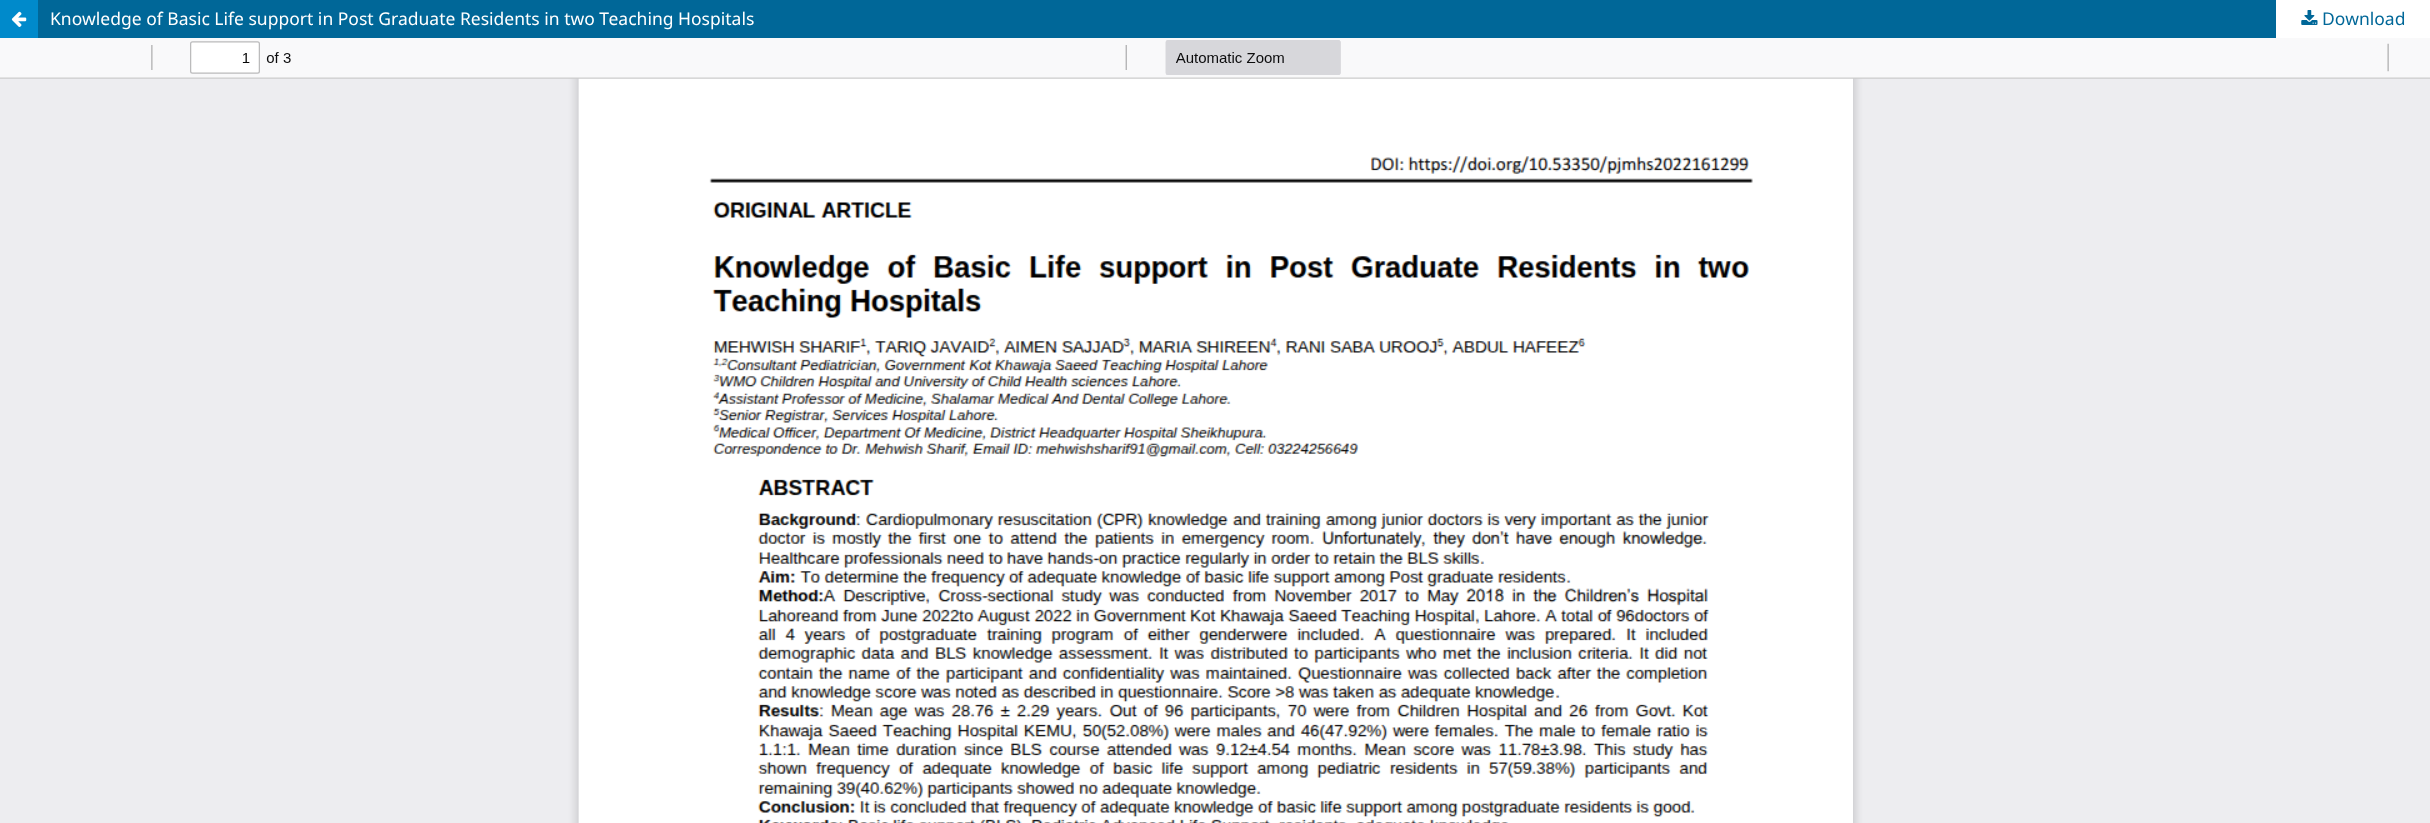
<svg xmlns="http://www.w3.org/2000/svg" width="2430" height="823">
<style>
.a{font:17.5px Noto Sans;fill:#fff}
.b{font:17.5px Noto Sans;fill:#006798}
</style>
<rect width="100%" height="100%" fill="#fff"/>
<path fill="#006798" d="M38 0h2238v38H38z"/>
<path fill="#008acb" d="M0 0h38v38H0z"/>
<image href="1.png" x="11" y="11" width="16" height="16"/>
<image href="2.png" x="2301" y="10" width="17" height="15"/>
<image href="3.png" x="0" y="38" width="2430" height="785"/>
<text class="a" x="50" y="25">Knowledge of Basic Life support in Post Graduate Residents in two Teaching Hospitals</text>
<text class="b" x="2322" y="25">Download</text>
</svg>
